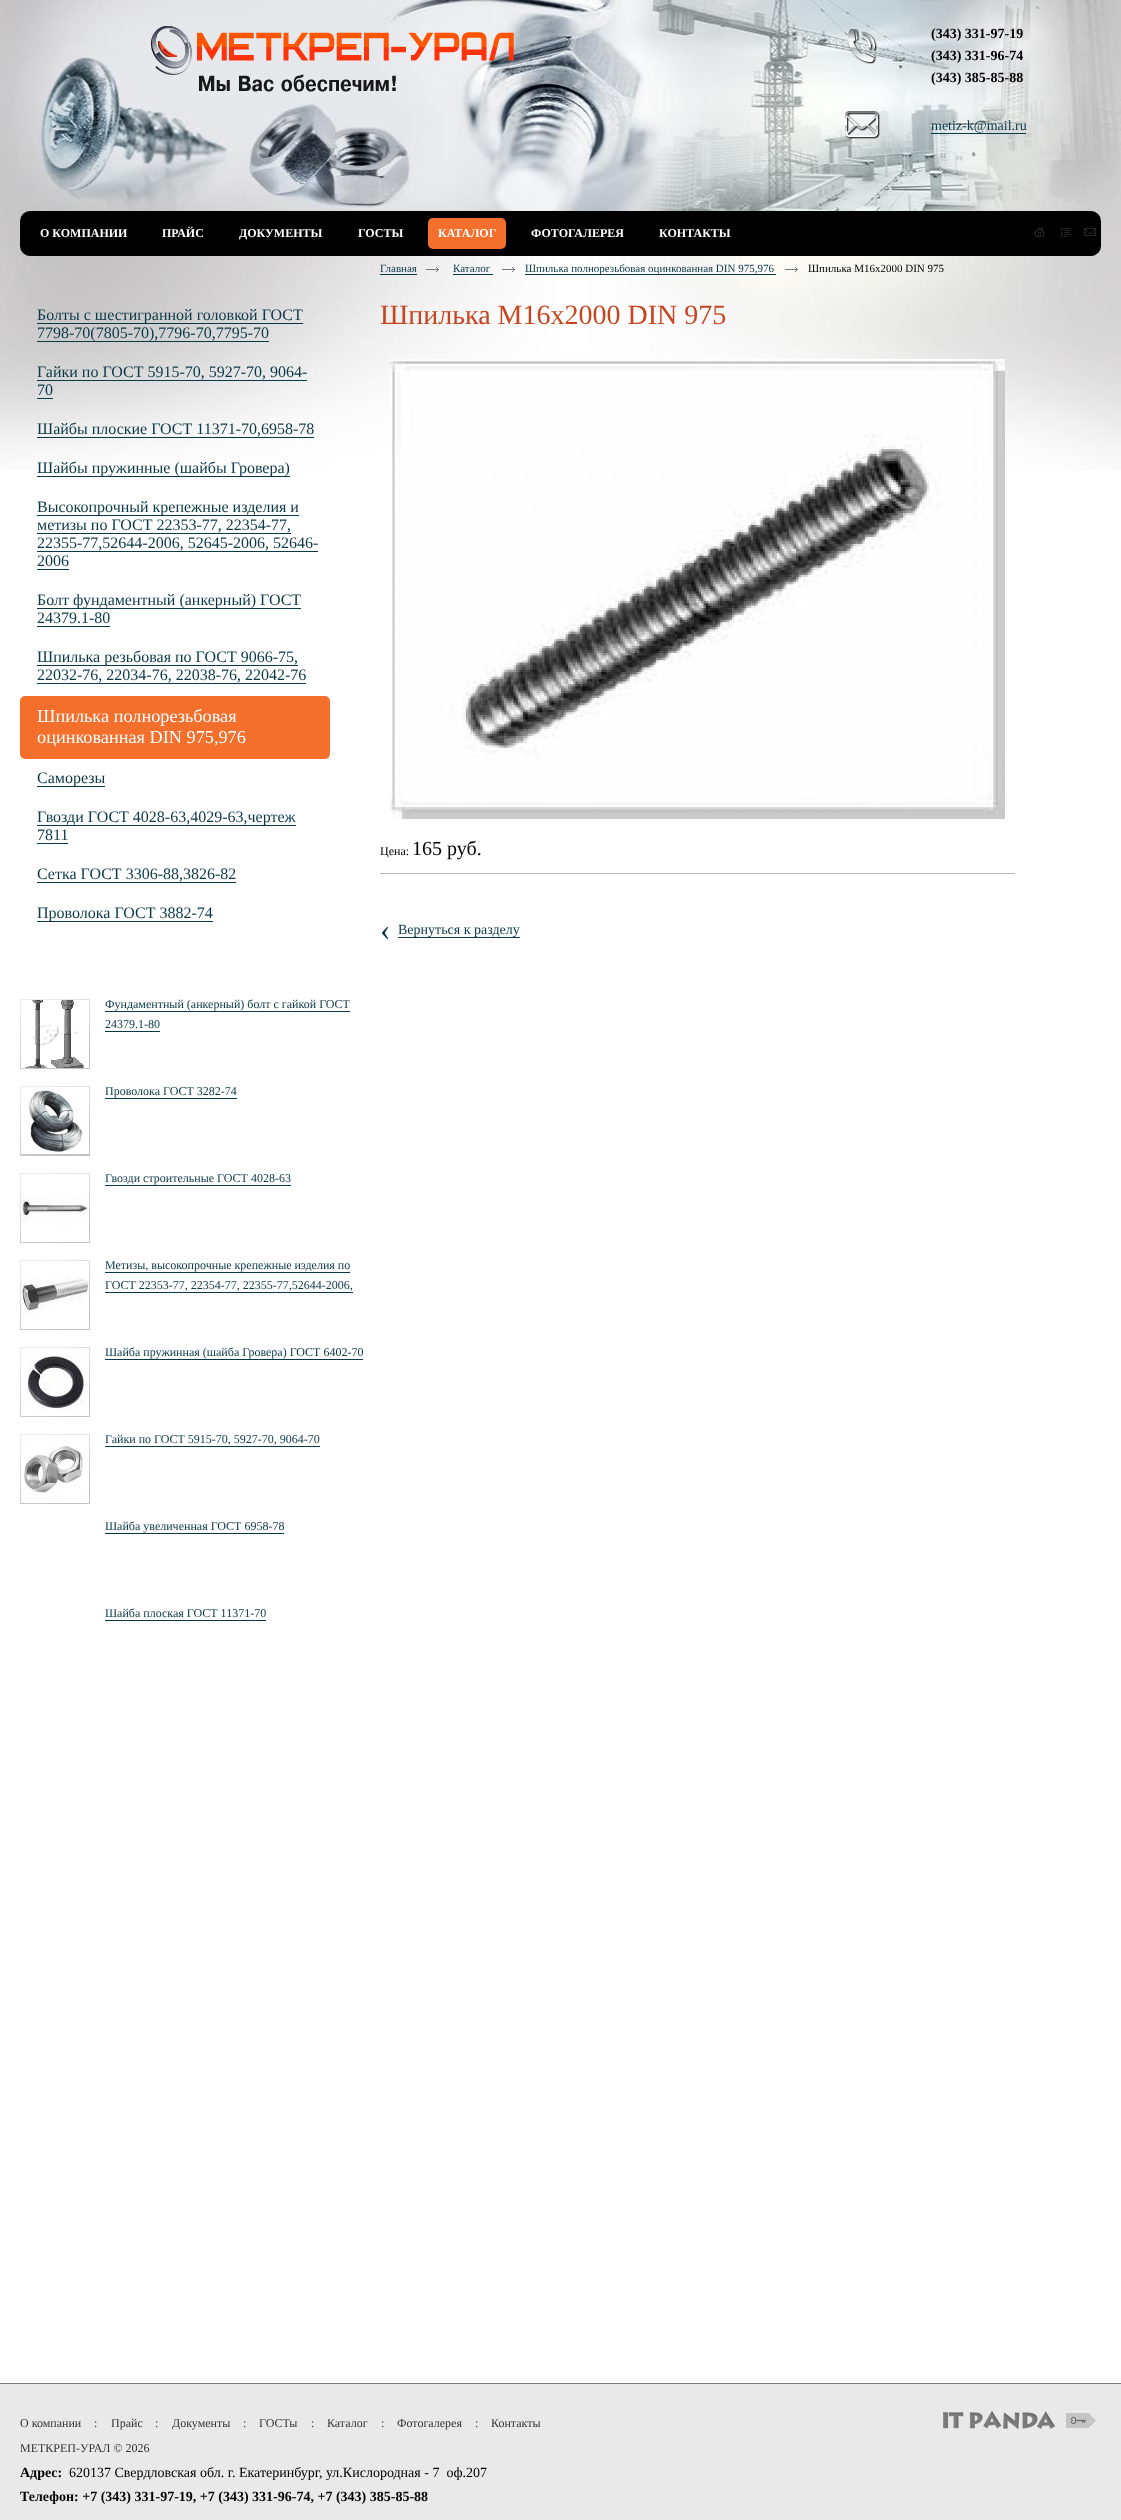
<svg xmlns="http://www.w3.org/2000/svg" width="1121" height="2520">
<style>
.a{font:bold 14px Liberation Serif;fill:#000}
.b{font:14px Liberation Serif;fill:#0a3847}
.c{font:bold 12px Liberation Serif;fill:#fff}
.d{font:16px Liberation Serif;fill:#0a3847}
.e{font:18.25px Liberation Serif;fill:#fff}
.f{font:12px Liberation Serif;fill:#0a3847}
.g{font:11px Liberation Serif;fill:#0a3847}
.h{font:11px Liberation Serif;fill:#000}
.i{font:28px Liberation Serif;fill:#c54620}
.j{font:12px Liberation Serif;fill:#000}
.k{font:20px Liberation Serif;fill:#000}
.l{font:31px Liberation Serif;fill:#0a3847}
.m{font:12px Liberation Serif;fill:#353535}
.n{font:14px Liberation Serif;fill:#000}
</style>
<rect width="100%" height="100%" fill="#fff"/>
<image href="1.png" x="0" y="0" width="1121" height="471"/>
<image href="2.png" x="151" y="26" width="363" height="66"/>
<image href="3.png" x="848" y="29" width="29" height="35"/>
<image href="4.png" x="845" y="111" width="35" height="28"/>
<path fill="#0a3847" d="M931 133h95v1H931z"/>
<rect fill="#000" x="20" y="211" width="1081" height="45" rx="10"/>
<rect fill="#f56f2c" x="428" y="218" width="78" height="31" rx="5"/>
<image href="5.png" x="1034" y="227" width="11" height="10"/>
<image href="6.png" x="1061" y="228" width="9" height="9"/>
<image href="7.png" x="1084" y="228" width="12" height="8"/>
<path fill="#0a3847" d="M37 323h266v1H37z"/>
<path fill="#0a3847" d="M37 341h232v1H37z"/>
<path fill="#0a3847" d="M37 380h270v1H37z"/>
<path fill="#0a3847" d="M37 398h16v1H37z"/>
<path fill="#0a3847" d="M37 437h277v1H37z"/>
<path fill="#0a3847" d="M37 476h253v1H37z"/>
<path fill="#0a3847" d="M37 515h262v1H37z"/>
<path fill="#0a3847" d="M37 533h254v1H37z"/>
<path fill="#0a3847" d="M37 551h281v1H37z"/>
<path fill="#0a3847" d="M37 569h32v1H37z"/>
<path fill="#0a3847" d="M37 608h264v1H37z"/>
<path fill="#0a3847" d="M37 626h73v1H37z"/>
<path fill="#0a3847" d="M37 665h261v1H37z"/>
<path fill="#0a3847" d="M37 683h269v1H37z"/>
<rect fill="#f56f2c" x="20" y="696" width="310" height="63" rx="5"/>
<path fill="#0a3847" d="M37 786h68v1H37z"/>
<path fill="#0a3847" d="M37 825h259v1H37z"/>
<path fill="#0a3847" d="M37 843h31v1H37z"/>
<path fill="#0a3847" d="M37 882h199v1H37z"/>
<path fill="#0a3847" d="M37 921h176v1H37z"/>
<image href="8.png" x="20" y="999" width="70" height="70"/>
<image href="9.png" x="21" y="1000" width="68" height="68"/>
<path fill="#0a3847" d="M105 1011h245v1H105z"/>
<path fill="#0a3847" d="M105 1031h55v1H105z"/>
<image href="8.png" x="20" y="1086" width="70" height="70"/>
<image href="10.png" x="21" y="1087" width="68" height="67"/>
<path fill="#0a3847" d="M105 1098h132v1H105z"/>
<image href="8.png" x="20" y="1173" width="70" height="70"/>
<image href="11.png" x="21" y="1174" width="68" height="68"/>
<path fill="#0a3847" d="M105 1185h186v1H105z"/>
<image href="8.png" x="20" y="1260" width="70" height="70"/>
<image href="12.png" x="21" y="1261" width="68" height="68"/>
<path fill="#0a3847" d="M105 1272h245v1H105z"/>
<path fill="#0a3847" d="M105 1292h248v1H105z"/>
<image href="8.png" x="20" y="1347" width="70" height="70"/>
<image href="13.png" x="21" y="1348" width="68" height="68"/>
<path fill="#0a3847" d="M105 1359h258v1H105z"/>
<image href="8.png" x="20" y="1434" width="70" height="70"/>
<image href="14.png" x="21" y="1435" width="68" height="68"/>
<path fill="#0a3847" d="M105 1446h215v1H105z"/>
<path fill="#0a3847" d="M105 1533h179v1H105z"/>
<path fill="#0a3847" d="M105 1620h161v1H105z"/>
<path fill="#0a3847" d="M380 274h37v1H380z"/>
<image href="15.png" x="426" y="267" width="13" height="5"/>
<path fill="#0a3847" d="M453 274h40v1H453z"/>
<image href="16.png" x="502" y="267" width="13" height="5"/>
<path fill="#0a3847" d="M525 274h251v1H525z"/>
<image href="17.png" x="785" y="267" width="13" height="5"/>
<image href="18.png" x="390" y="359" width="615" height="460"/>
<path fill="#b6b6b7" d="M380 873h635v1H380z"/>
<path fill="#0a3847" d="M398 937h122v1H398z"/>
<path fill="#e9e9e9" d="M0 2384h1121v136H0z"/>
<path fill="#7e7e7e" d="M0 2383h1121v1H0z"/>
<image href="19.png" x="943" y="2411" width="112" height="18"/>
<image href="20.png" x="1066" y="2413" width="30" height="15"/>
<text class="a" x="931" y="38">(343) 331-97-19</text>
<text class="a" x="931" y="60">(343) 331-96-74</text>
<text class="a" x="931" y="82">(343) 385-85-88</text>
<text class="b" x="931" y="130">metiz-k@mail.ru</text>
<text class="c" x="40" y="237">О КОМПАНИИ</text>
<text class="c" x="162" y="237">ПРАЙС</text>
<text class="c" x="239" y="237">ДОКУМЕНТЫ</text>
<text class="c" x="358" y="237">ГОСТЫ</text>
<text class="c" x="438" y="237">КАТАЛОГ</text>
<text class="c" x="531" y="237">ФОТОГАЛЕРЕЯ</text>
<text class="c" x="659" y="237">КОНТАКТЫ</text>
<text class="d" x="37" y="320">Болты с шестигранной головкой ГОСТ</text>
<text class="d" x="37" y="338">7798-70(7805-70),7796-70,7795-70</text>
<text class="d" x="37" y="377">Гайки по ГОСТ 5915-70, 5927-70, 9064-</text>
<text class="d" x="37" y="395">70</text>
<text class="d" x="37" y="434">Шайбы плоские ГОСТ 11371-70,6958-78</text>
<text class="d" x="37" y="473">Шайбы пружинные (шайбы Гровера)</text>
<text class="d" x="37" y="512">Высокопрочный крепежные изделия и</text>
<text class="d" x="37" y="530">метизы по ГОСТ 22353-77, 22354-77,</text>
<text class="d" x="37" y="548">22355-77,52644-2006, 52645-2006, 52646-</text>
<text class="d" x="37" y="566">2006</text>
<text class="d" x="37" y="605">Болт фундаментный (анкерный) ГОСТ</text>
<text class="d" x="37" y="623">24379.1-80</text>
<text class="d" x="37" y="662">Шпилька резьбовая по ГОСТ 9066-75,</text>
<text class="d" x="37" y="680">22032-76, 22034-76, 22038-76, 22042-76</text>
<text class="e" x="37" y="722">Шпилька полнорезьбовая</text>
<text class="e" x="37" y="743">оцинкованная DIN 975,976</text>
<text class="d" x="37" y="783">Саморезы</text>
<text class="d" x="37" y="822">Гвозди ГОСТ 4028-63,4029-63,чертеж</text>
<text class="d" x="37" y="840">7811</text>
<text class="d" x="37" y="879">Сетка ГОСТ 3306-88,3826-82</text>
<text class="d" x="37" y="918">Проволока ГОСТ 3882-74</text>
<text class="f" x="105" y="1008">Фундаментный (анкерный) болт с гайкой ГОСТ</text>
<text class="f" x="105" y="1028">24379.1-80</text>
<text class="f" x="105" y="1095">Проволока ГОСТ 3282-74</text>
<text class="f" x="105" y="1182">Гвозди строительные ГОСТ 4028-63</text>
<text class="f" x="105" y="1269">Метизы, высокопрочные крепежные изделия по</text>
<text class="f" x="105" y="1289">ГОСТ 22353-77, 22354-77, 22355-77,52644-2006,</text>
<text class="f" x="105" y="1356">Шайба пружинная (шайба Гровера) ГОСТ 6402-70</text>
<text class="f" x="105" y="1443">Гайки по ГОСТ 5915-70, 5927-70, 9064-70</text>
<text class="f" x="105" y="1530">Шайба увеличенная ГОСТ 6958-78</text>
<text class="f" x="105" y="1617">Шайба плоская ГОСТ 11371-70</text>
<text class="g" x="380" y="272">Главная</text>
<text class="g" x="453" y="272">Каталог</text>
<text class="g" x="525" y="272">Шпилька полнорезьбовая оцинкованная DIN 975,976</text>
<text class="h" x="808" y="272">Шпилька М16х2000 DIN 975</text>
<text class="i" x="380" y="324">Шпилька М16х2000 DIN 975</text>
<text class="j" x="380" y="855">Цена:</text>
<text class="k" x="412" y="855">165 руб.</text>
<text class="l" x="380" y="940">‹</text>
<text class="b" x="398" y="934">Вернуться к разделу</text>
<text class="m" x="20" y="2427">О компании</text>
<text class="m" x="94" y="2427">:</text>
<text class="m" x="111" y="2427">Прайс</text>
<text class="m" x="155" y="2427">:</text>
<text class="m" x="172" y="2427">Документы</text>
<text class="m" x="243" y="2427">:</text>
<text class="m" x="259" y="2427">ГОСТы</text>
<text class="m" x="311" y="2427">:</text>
<text class="m" x="327" y="2427">Каталог</text>
<text class="m" x="381" y="2427">:</text>
<text class="m" x="397" y="2427">Фотогалерея</text>
<text class="m" x="475" y="2427">:</text>
<text class="m" x="491" y="2427">Контакты</text>
<text class="m" x="20" y="2452">МЕТКРЕП-УРАЛ © 2026</text>
<text class="a" x="20" y="2477">Адрес:</text>
<text class="n" xml:space="preserve" x="69" y="2477">620137 Свердловская обл. г. Екатеринбург, ул.Кислородная - 7  оф.207</text>
<text class="a" x="20" y="2501">Телефон: +7 (343) 331-97-19, +7 (343) 331-96-74, +7 (343) 385-85-88</text>
</svg>
